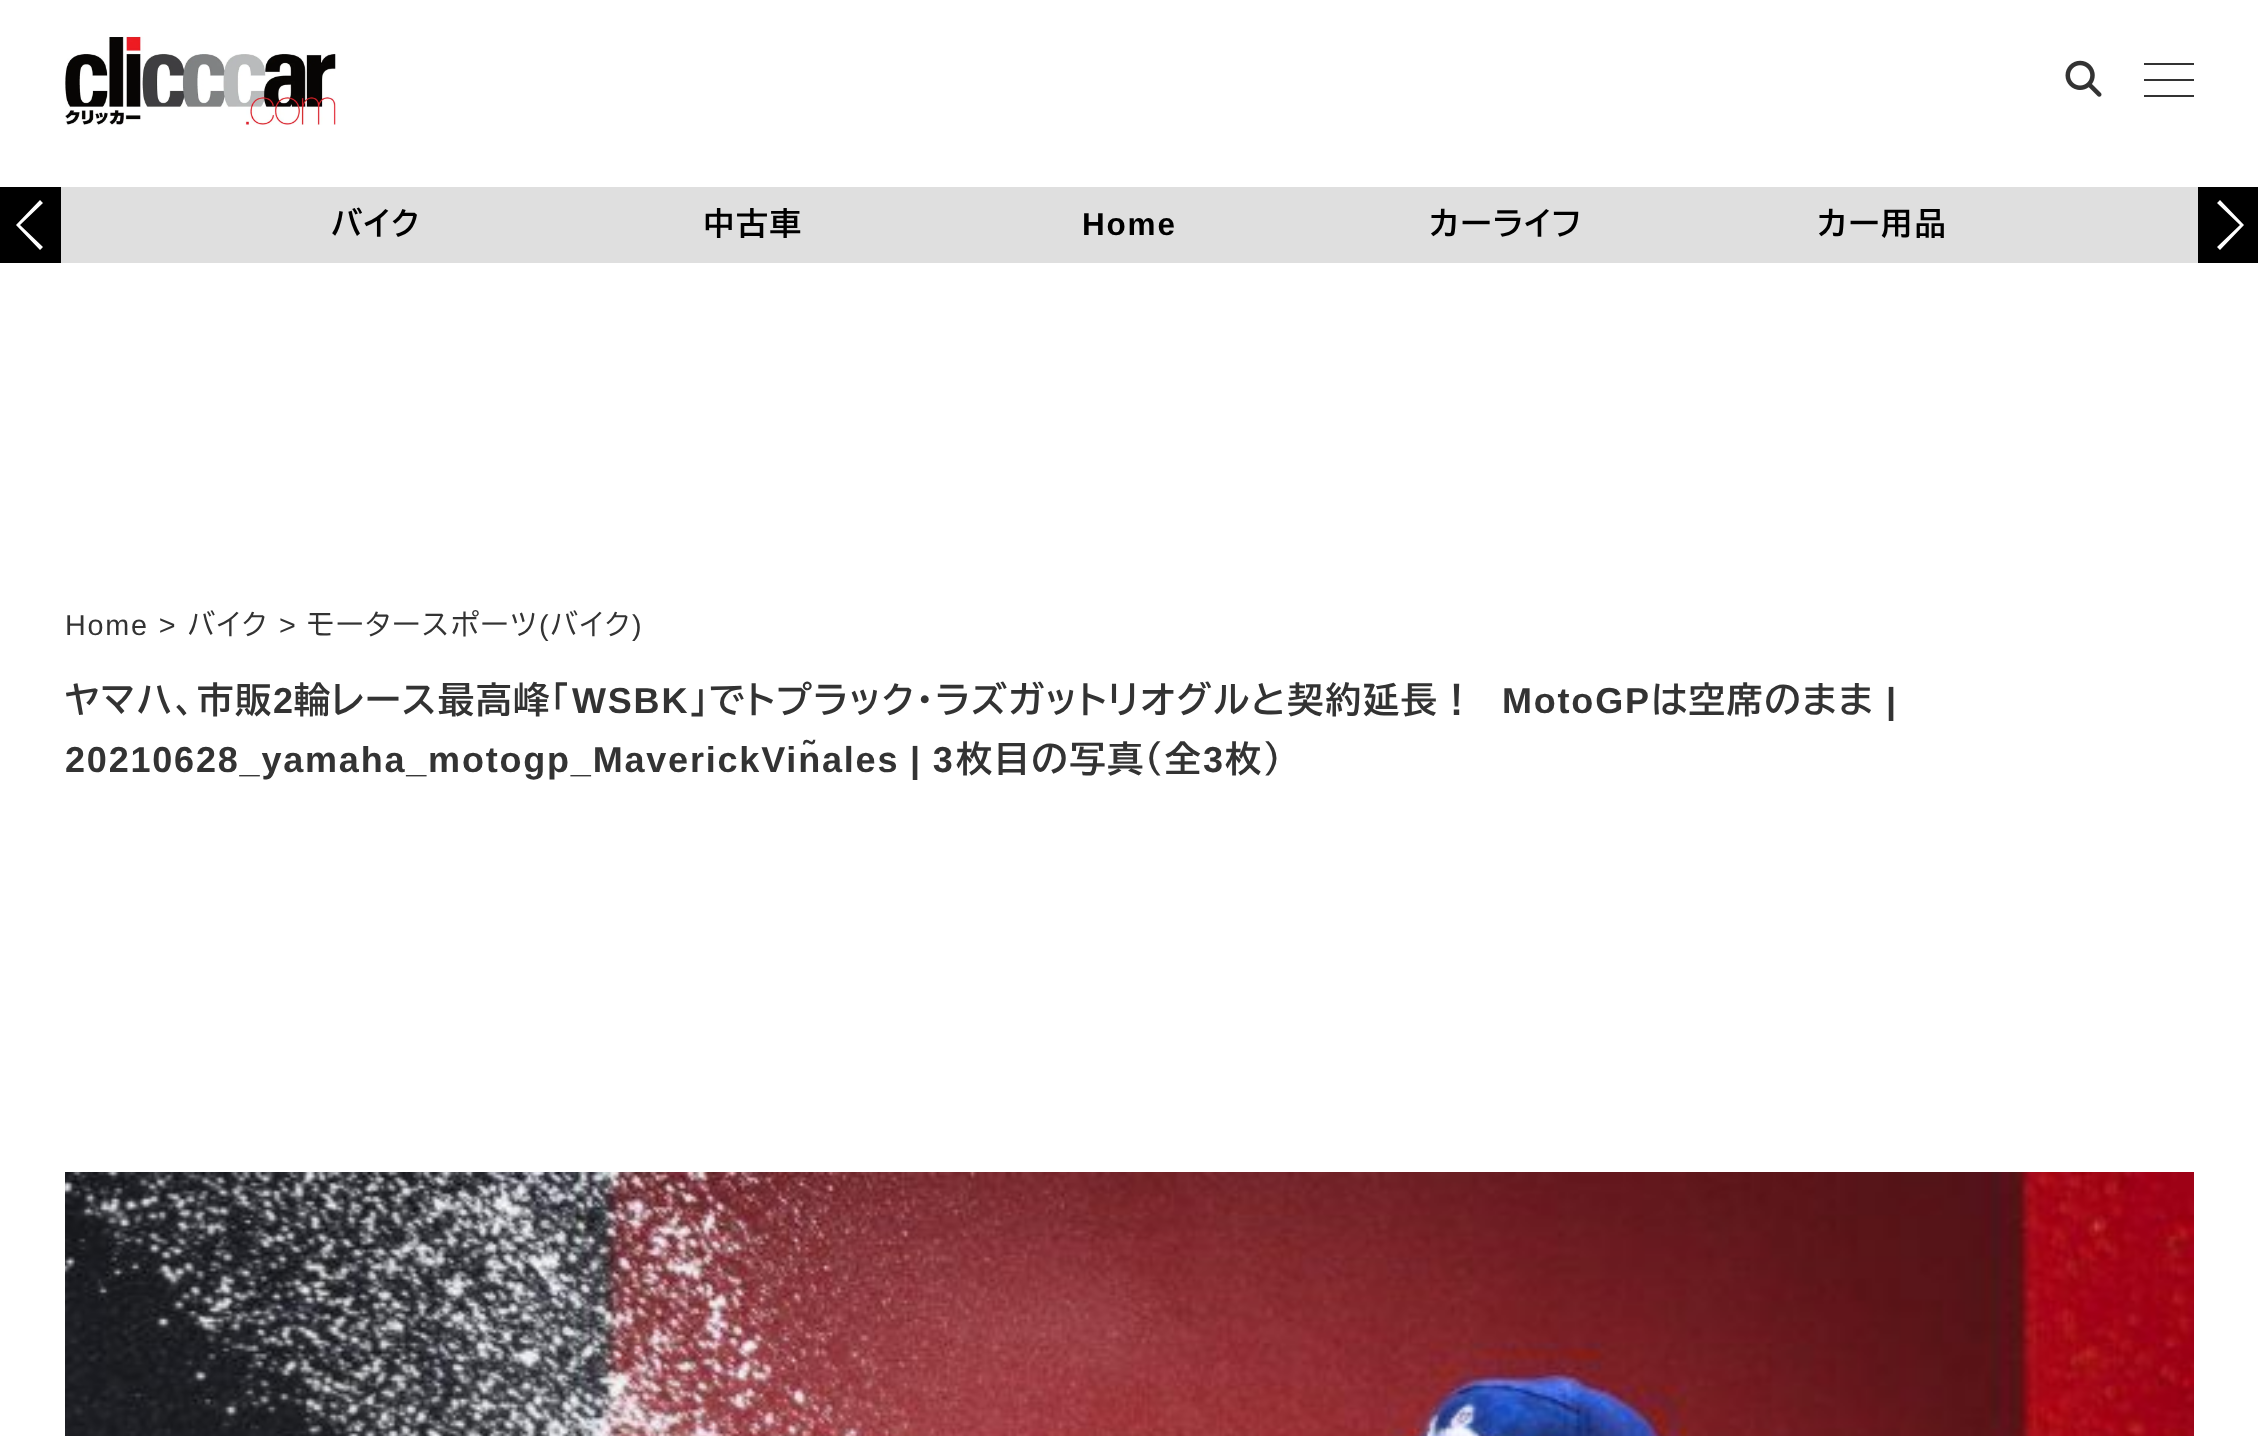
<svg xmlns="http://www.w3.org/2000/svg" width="2258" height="1436">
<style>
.a{font:bold 31.5px BIZ UDPGothic;letter-spacing:1.8px;fill:#000}
.b{font:bold 31.5px Liberation Sans;letter-spacing:1.8px;fill:#000}
.c{font:28.75px BIZ UDPGothic;letter-spacing:1.8px;fill:#333}
.d{font:28.75px Liberation Sans;letter-spacing:1.8px;fill:#333}
.e{font:bold 36px BIZ UDPGothic;letter-spacing:1.8px;fill:#333}
.f{font:bold 36px Liberation Sans;letter-spacing:1.8px;fill:#333}
</style>
<rect width="100%" height="100%" fill="#fff"/>
<image href="1.png" x="65" y="36" width="271" height="89"/>
<image href="2.png" x="2065" y="60" width="37" height="37"/>
<path fill="#333" d="M2144 63h50v2H2144z"/>
<path fill="#333" d="M2144 79h50v2H2144z"/>
<path fill="#333" d="M2144 95h50v2H2144z"/>
<path fill="#000" d="M0 187h61v76H0z"/>
<path fill="#fff" d="M16 225l24-25l3 3l-23 22l23 22l-3 3z"/>
<path fill="#dfdfdf" d="M61 187h880v76H61z"/>
<path fill="#dfdfdf" d="M941 187h1257v76H941z"/>
<path fill="#000" d="M2198 187h60v76H2198z"/>
<path fill="#fff" d="M2244 225l-24 25l-3-3l23-22l-23-22l3-3z"/>
<image href="3.png" x="65" y="1172" width="2129" height="264"/>
<text class="a" x="331" y="235">バイク</text>
<text class="a" x="703" y="235">中古車</text>
<text class="b" x="1082" y="235">Home</text>
<text class="a" x="1429" y="235">カーライフ</text>
<text class="a" x="1817" y="235">カー用品</text>
<text class="c" x="187" y="635">バイク</text>
<text class="c" x="307" y="635">モータースポーツ バイク</text>
<text class="d" x="65" y="635">Home &gt;</text>
<text class="d" x="279" y="635">&gt;</text>
<text class="d" x="539" y="635">(</text>
<text class="d" x="632" y="635">)</text>
<text class="e" x="65" y="713">ヤマハ、市販</text>
<text class="f" x="273" y="713">2</text>
<text class="e" x="294" y="713">輪レース最高峰「</text>
<text class="f" x="572" y="713">WSBK</text>
<text class="e" x="689" y="713">」でトプラック・ラズガットリオグルと契約延長！</text>
<text class="f" x="1502" y="713">MotoGP</text>
<text class="e" x="1651" y="713">は空席のまま</text>
<text class="f" x="1886" y="713">|</text>
<text class="f" x="65" y="772" word-spacing="-1">20210628_yamaha_motogp_MaverickViñales | 3</text>
<text class="e" x="956" y="772">枚目の写真（全</text>
<text class="f" x="1203" y="772">3</text>
<text class="e" x="1225" y="772">枚）</text>
</svg>
